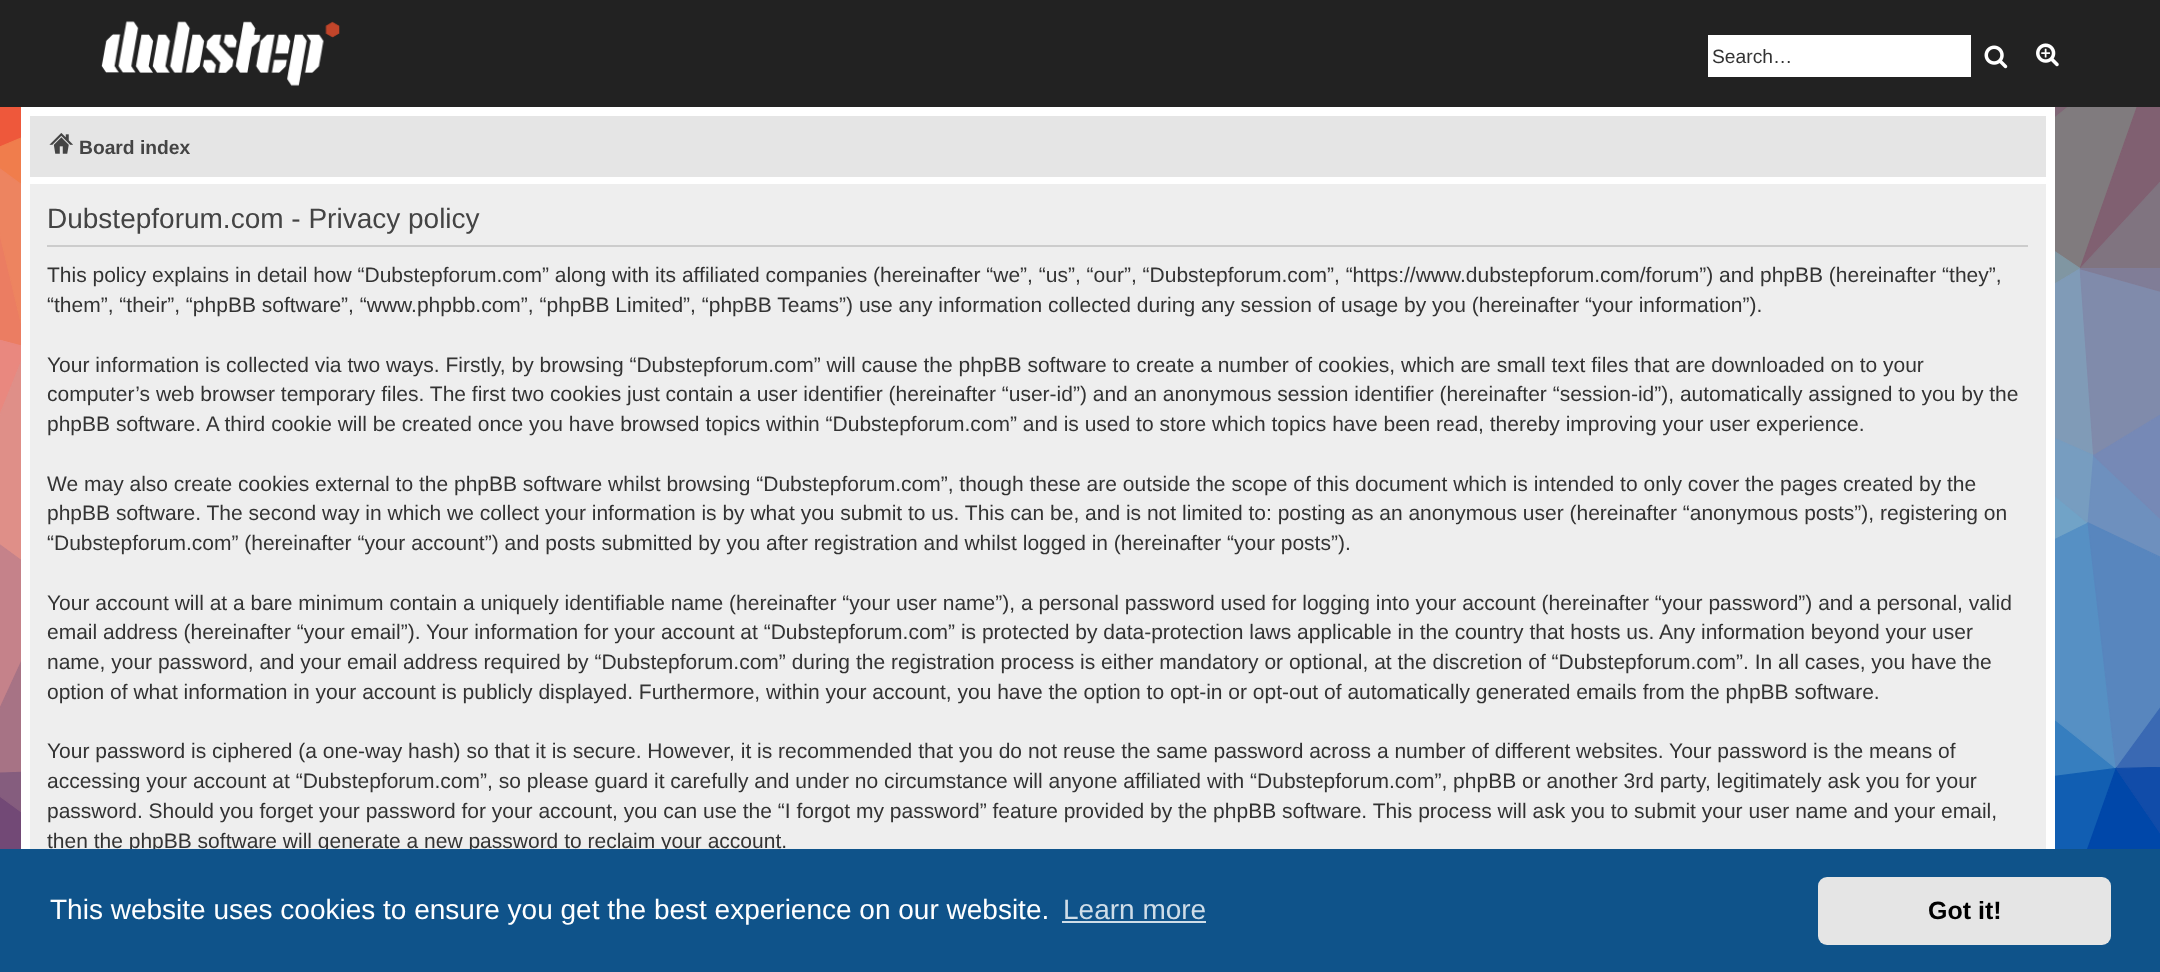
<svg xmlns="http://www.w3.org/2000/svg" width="2160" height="972">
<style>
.a{font:19.25px Liberation Sans;fill:#333}
.b{font:bold 19.25px Liberation Sans;fill:#444}
.c{font:28px Liberation Sans;fill:#444}
.d{font:21px Liberation Sans;fill:#333}
.e{font:28px Liberation Sans;fill:#fff}
.f{font:28px Liberation Sans;fill:#cfdde8}
.g{font:bold 25px Liberation Sans;fill:#000}
</style>
<rect width="100%" height="100%" fill="#fff"/>
<image href="1.png" x="0" y="107" width="2160" height="742"/>
<image href="2.png" x="2055" y="107" width="50" height="742"/>
<path fill="#222" d="M0 0h2160v107H0z"/>
<image href="3.png" x="101" y="21" width="239" height="65"/>
<path fill="#fff" d="M1708 35h263v42H1708z"/>
<image href="4.png" x="1984" y="45" width="24" height="24"/>
<image href="5.png" x="2036" y="43" width="23" height="24"/>
<path fill="#fff" d="M21 107h2034v742H21z"/>
<path fill="#e5e5e5" d="M30 116h2016v61H30z"/>
<image href="6.png" x="49" y="133" width="24" height="21"/>
<path fill="#eee" d="M30 184h2016v665H30z"/>
<path fill="#ccc" d="M47 245h1981v2H47z"/>
<text class="a" x="1712" y="63">Search…</text>
<text class="b" x="79" y="154">Board index</text>
<text class="c" x="47" y="228">Dubstepforum.com - Privacy policy</text>
<text class="d" x="47" y="282">This policy explains in detail how “Dubstepforum.com” along with its affiliated companies (hereinafter “we”, “us”, “our”, “Dubstepforum.com”, “https://www.dubstepforum.com/forum”) and phpBB (hereinafter “they”,</text>
<text class="d" x="47" y="312">“them”, “their”, “phpBB software”, “www.phpbb.com”, “phpBB Limited”, “phpBB Teams”) use any information collected during any session of usage by you (hereinafter “your information”).</text>
<text class="d" x="47" y="372">Your information is collected via two ways. Firstly, by browsing “Dubstepforum.com” will cause the phpBB software to create a number of cookies, which are small text files that are downloaded on to your</text>
<text class="d" x="47" y="401">computer’s web browser temporary files. The first two cookies just contain a user identifier (hereinafter “user-id”) and an anonymous session identifier (hereinafter “session-id”), automatically assigned to you by the</text>
<text class="d" x="47" y="431">phpBB software. A third cookie will be created once you have browsed topics within “Dubstepforum.com” and is used to store which topics have been read, thereby improving your user experience.</text>
<text class="d" x="47" y="491">We may also create cookies external to the phpBB software whilst browsing “Dubstepforum.com”, though these are outside the scope of this document which is intended to only cover the pages created by the</text>
<text class="d" x="47" y="520">phpBB software. The second way in which we collect your information is by what you submit to us. This can be, and is not limited to: posting as an anonymous user (hereinafter “anonymous posts”), registering on</text>
<text class="d" x="47" y="550">“Dubstepforum.com” (hereinafter “your account”) and posts submitted by you after registration and whilst logged in (hereinafter “your posts”).</text>
<text class="d" x="47" y="610">Your account will at a bare minimum contain a uniquely identifiable name (hereinafter “your user name”), a personal password used for logging into your account (hereinafter “your password”) and a personal, valid</text>
<text class="d" x="47" y="639">email address (hereinafter “your email”). Your information for your account at “Dubstepforum.com” is protected by data-protection laws applicable in the country that hosts us. Any information beyond your user</text>
<text class="d" x="47" y="669">name, your password, and your email address required by “Dubstepforum.com” during the registration process is either mandatory or optional, at the discretion of “Dubstepforum.com”. In all cases, you have the</text>
<text class="d" x="47" y="699">option of what information in your account is publicly displayed. Furthermore, within your account, you have the option to opt-in or opt-out of automatically generated emails from the phpBB software.</text>
<text class="d" x="47" y="758">Your password is ciphered (a one-way hash) so that it is secure. However, it is recommended that you do not reuse the same password across a number of different websites. Your password is the means of</text>
<text class="d" x="47" y="788">accessing your account at “Dubstepforum.com”, so please guard it carefully and under no circumstance will anyone affiliated with “Dubstepforum.com”, phpBB or another 3rd party, legitimately ask you for your</text>
<text class="d" x="47" y="818">password. Should you forget your password for your account, you can use the “I forgot my password” feature provided by the phpBB software. This process will ask you to submit your user name and your email,</text>
<text class="d" x="47" y="848">then the phpBB software will generate a new password to reclaim your account.</text>
<path fill="#0f538a" d="M0 849h2160v123H0z"/>
<text class="e" x="50" y="919">This website uses cookies to ensure you get the best experience on our website.</text>
<text class="f" x="1063" y="919">Learn more</text>
<path fill="#cfdde8" d="M1062 921h144v2H1062z"/>
<rect fill="#e5e5e5" x="1818" y="877" width="293" height="68" rx="9"/>
<text class="g" x="1928" y="919">Got it!</text>
</svg>
